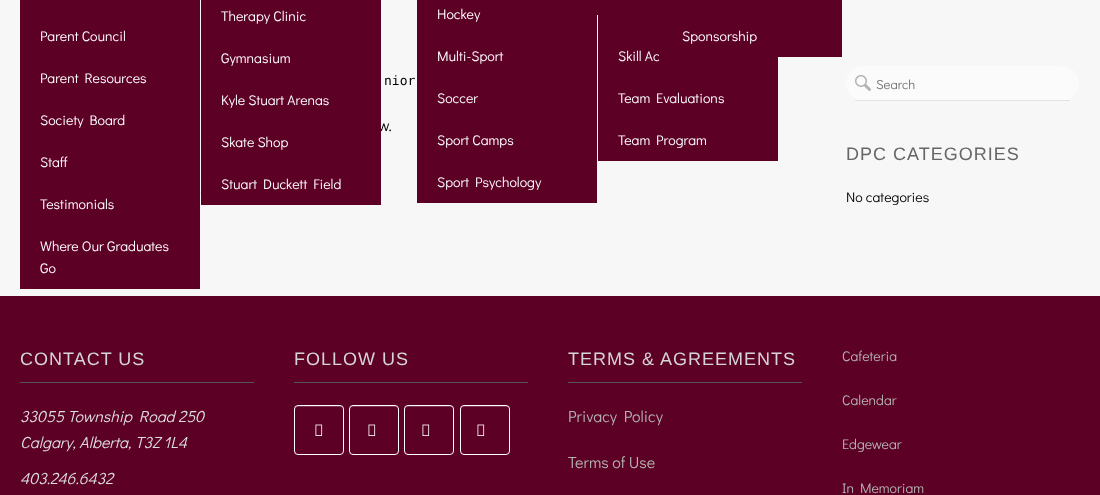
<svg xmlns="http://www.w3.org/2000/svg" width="1100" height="495">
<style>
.a{font:14px Didact Gothic;fill:#fff}
.b{font:13px DejaVu Sans Mono;fill:#000}
.c{font:16px Didact Gothic;fill:#000}
.d{font:13px Didact Gothic;fill:#757575}
.e{font:18px Liberation Sans;letter-spacing:1px;fill:#666}
.f{font:14px Didact Gothic;fill:#000}
.g{font:18px Liberation Sans;letter-spacing:1px;fill:#d5d5d5}
.h{font:italic 16px Didact Gothic;fill:#ddd}
.i{font:16px Didact Gothic;fill:#b3b3b1}
.j{font:14px Didact Gothic;fill:#b3b3b1}
</style>
<rect width="100%" height="100%" fill="#f7f7f7"/>
<path fill="#5d0025" d="M597 0h65v15H597z"/>
<path fill="#5d0025" d="M20 0h180v289H20z"/>
<path fill="#5d0025" d="M417 0h180v203H417z"/>
<path fill="#5d0025" d="M598 15h180v146H598z"/>
<path fill="#5d0025" d="M662 0h180v57H662z"/>
<path fill="#fbfbfb" d="M200 158h1v35H200z"/>
<path fill="#c4c4c466" d="M200 192h1v1H200z"/>
<rect fill="#fbfbfb" x="846" y="66" width="233" height="35" rx="17.5"/>
<image href="1.png" x="855" y="75" width="16" height="16"/>
<path fill="#c4c4c466" d="M855 100h215v1H855z"/>
<path fill="#5d0025" d="M0 296h1100v199H0z"/>
<path fill="#555557" d="M20 382h234v1H20z"/>
<path fill="#555557" d="M294 382h234v1H294z"/>
<path fill="#7d3351" d="M298 407h42c2 0 3 1 3 3c0-6-6-4-10-4h-28c-4 0-10-2-10 4c0-2 1-3 3-3z"/>
<rect fill="none" stroke="#fff" x="294.5" y="405.5" width="49" height="49" rx="3.5"/>
<image href="2.png" x="315" y="424" width="8" height="12"/>
<path fill="#7d3351" d="M353 407h42c2 0 3 1 3 3c0-6-6-4-10-4h-28c-4 0-10-2-10 4c0-2 1-3 3-3z"/>
<rect fill="none" stroke="#fff" x="349.5" y="405.5" width="49" height="49" rx="3.5"/>
<image href="2.png" x="368" y="424" width="8" height="12"/>
<path fill="#7d3351" d="M408 407h42c2 0 3 1 3 3c0-6-6-4-10-4h-28c-4 0-10-2-10 4c0-2 1-3 3-3z"/>
<rect fill="none" stroke="#fff" x="404.5" y="405.5" width="49" height="49" rx="3.5"/>
<image href="2.png" x="422" y="424" width="8" height="12"/>
<path fill="#7d3351" d="M464 407h42c2 0 3 1 3 3c0-6-6-4-10-4h-28c-4 0-10-2-10 4c0-2 1-3 3-3z"/>
<rect fill="none" stroke="#fff" x="460.5" y="405.5" width="49" height="49" rx="3.5"/>
<image href="2.png" x="477" y="424" width="8" height="12"/>
<path fill="#555557" d="M568 382h234v1H568z"/>
<text class="a" x="40" y="41">Parent Council</text>
<text class="a" x="40" y="83">Parent Resources</text>
<text class="a" x="40" y="125">Society Board</text>
<text class="a" x="40" y="167">Staff</text>
<text class="a" x="40" y="209">Testimonials</text>
<text class="a" x="40" y="251">Where Our Graduates</text>
<text class="a" x="40" y="273">Go</text>
<text class="a" x="437" y="19">Hockey</text>
<text class="a" x="618" y="61">Skill Ac</text>
<text class="a" x="618" y="103">Team Evaluations</text>
<text class="a" x="618" y="145">Team Program</text>
<text class="a" x="437" y="61">Multi-Sport</text>
<text class="a" x="437" y="103">Soccer</text>
<text class="a" x="437" y="145">Sport Camps</text>
<text class="a" x="437" y="187">Sport Psychology</text>
<text class="a" x="682" y="41">Sponsorship</text>
<text class="b" x="384" y="85">nior</text>
<text class="c" x="378" y="131">w.</text>
<path fill="#5d0025" d="M201 0h180v205H201z"/>
<text class="a" x="221" y="189">Stuart Duckett Field</text>
<text class="a" x="221" y="147">Skate Shop</text>
<text class="a" x="221" y="105">Kyle Stuart Arenas</text>
<text class="a" x="221" y="63">Gymnasium</text>
<text class="a" x="221" y="21">Therapy Clinic</text>
<text class="d" x="876" y="89">Search</text>
<text class="e" x="846" y="160">DPC CATEGORIES</text>
<text class="f" x="846" y="202">No categories</text>
<text class="g" x="20" y="365">CONTACT US</text>
<text class="h" x="20" y="422">33055 Township Road 250</text>
<text class="h" x="20" y="448">Calgary, Alberta, T3Z 1L4</text>
<text class="h" x="20" y="484">403.246.6432</text>
<text class="g" x="294" y="365">FOLLOW US</text>
<text class="g" x="568" y="365">TERMS &amp; AGREEMENTS</text>
<text class="i" x="568" y="422">Privacy Policy</text>
<text class="i" x="568" y="468">Terms of Use</text>
<text class="j" x="842" y="361">Cafeteria</text>
<text class="j" x="842" y="405">Calendar</text>
<text class="j" x="842" y="449">Edgewear</text>
<text class="j" x="842" y="493">In Memoriam</text>
</svg>
